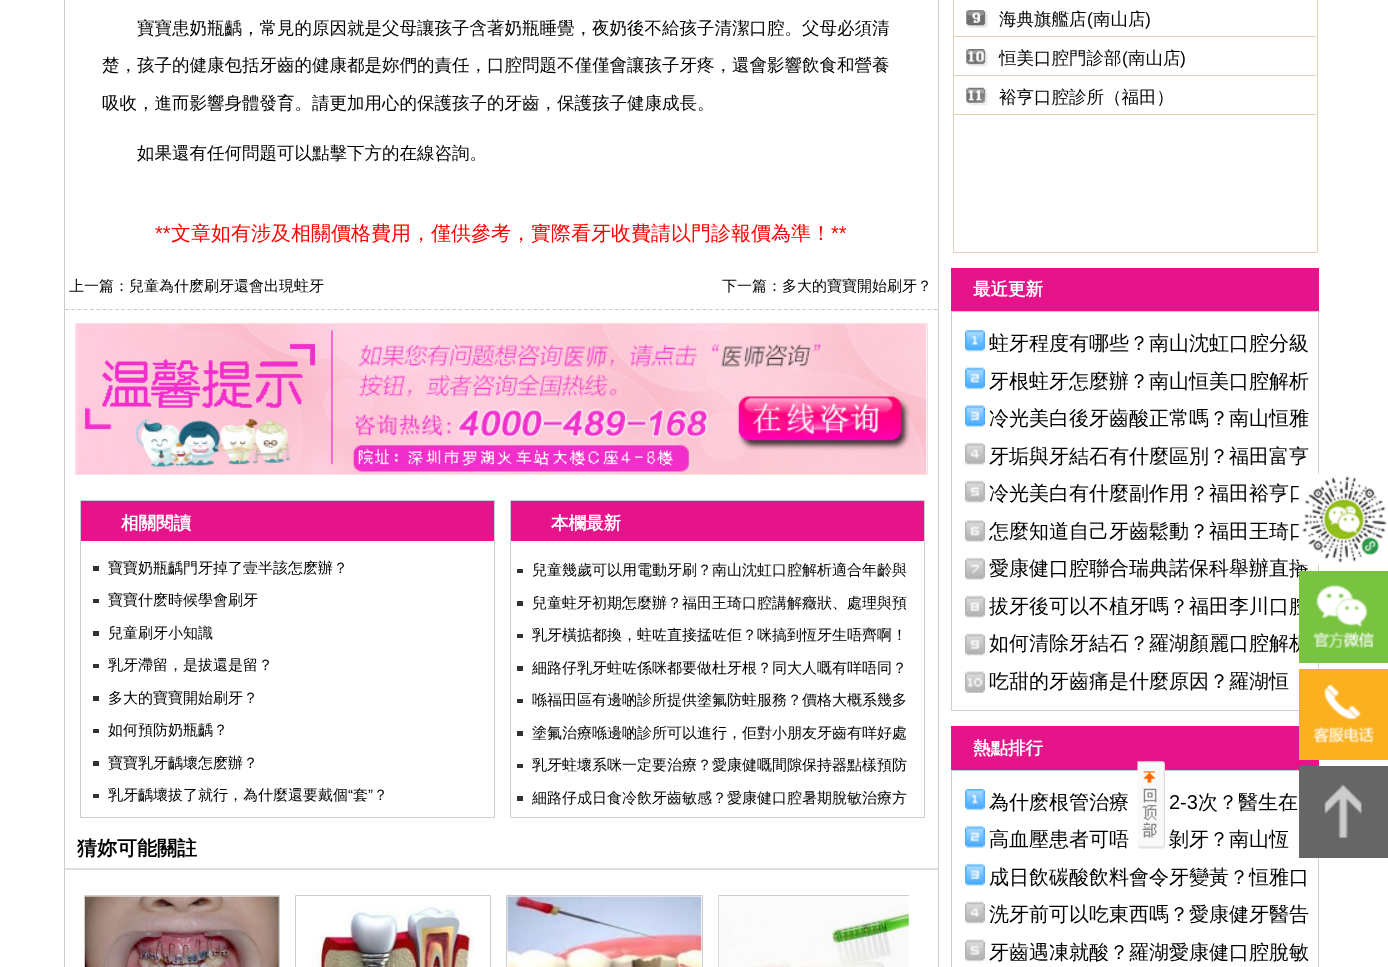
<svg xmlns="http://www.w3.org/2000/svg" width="1388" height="967">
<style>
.a{font:500 17.5px WenQuanYi Zen Hei;fill:#000}
.b{font:20px Liberation Sans;fill:#f00}
.c{font:500 20px WenQuanYi Zen Hei;fill:#f00}
.d{font:500 15px WenQuanYi Zen Hei;fill:#000}
.e{font:bold 17.5px WenQuanYi Zen Hei;fill:#fff}
.f{font:15px Liberation Sans;fill:#000}
.g{font:bold 20px WenQuanYi Zen Hei;fill:#000}
.h{font:17.5px Liberation Sans;fill:#000}
.i{font:500 20px WenQuanYi Zen Hei;fill:#000}
.j{font:20px Liberation Sans;fill:#000}
</style>
<defs>
<clipPath id="clip1"><path d="M718 895h191v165H718z"/></clipPath>
</defs>
<rect width="100%" height="100%" fill="#fff"/>
<path fill="none" stroke="#ccc" d="M64.5 -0.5h874v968H64.5z"/>
<path fill="none" stroke="#ccc" stroke-width="1.2" stroke-dasharray="3.75 2.5" d="M65 309.5h872.5"/>
<path fill="none" stroke="#fcdcdd" d="M75.5 323.5h852v151H75.5z"/>
<image href="1.png" x="76" y="324" width="851" height="150"/>
<path fill="none" stroke="#ccc" d="M80.5 500.5h414v317H80.5z"/>
<path fill="#e6148a" d="M81 501h413v40H81z"/>
<path fill="#333" d="M93 566h6v5H93z"/>
<path fill="#333" d="M93 599h6v4H93z"/>
<path fill="#333" d="M93 631h6v5H93z"/>
<path fill="#333" d="M93 664h6v4H93z"/>
<path fill="#333" d="M93 696h6v5H93z"/>
<path fill="#333" d="M93 729h6v4H93z"/>
<path fill="#333" d="M93 761h6v5H93z"/>
<path fill="#333" d="M93 794h6v4H93z"/>
<path fill="none" stroke="#ccc" d="M510.5 500.5h414v317H510.5z"/>
<path fill="#e6148a" d="M511 501h413v40H511z"/>
<path fill="#333" d="M517 569h6v4H517z"/>
<path fill="#333" d="M517 601h6v5H517z"/>
<path fill="#333" d="M517 634h6v4H517z"/>
<path fill="#333" d="M517 666h6v5H517z"/>
<path fill="#333" d="M517 699h6v4H517z"/>
<path fill="#333" d="M517 731h6v5H517z"/>
<path fill="#333" d="M517 764h6v4H517z"/>
<path fill="#333" d="M517 796h6v5H517z"/>
<path fill="#dfdfdf" d="M65 868h873v2H65z"/>
<path fill="none" stroke="#ccc" d="M84.5 895.5h195v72H84.5z"/>
<image href="2.png" x="85" y="896" width="194" height="71"/>
<path fill="none" stroke="#ccc" d="M295.5 895.5h195v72H295.5z"/>
<image href="3.png" x="312" y="905" width="162" height="62"/>
<path fill="none" stroke="#ccc" d="M506.5 895.5h196v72H506.5z"/>
<image href="4.png" x="507" y="896" width="195" height="71"/>
<g clip-path="url(#clip1)">
<path fill="none" stroke="#ccc" d="M718.5 895.5h195v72H718.5z"/>
</g>
<image href="5.png" x="718" y="896" width="191" height="71"/>
<path fill="none" stroke="#e5d1b8" d="M953.5 -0.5h364v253H953.5z"/>
<path fill="#e5d1b8" d="M954 36h362v1H954z"/>
<image href="6.png" x="966" y="10" width="22" height="18"/>
<path fill="#e5d1b8" d="M954 75h362v1H954z"/>
<image href="7.png" x="966" y="49" width="22" height="18"/>
<path fill="#e5d1b8" d="M954 114h362v1H954z"/>
<image href="8.png" x="966" y="87" width="22" height="19"/>
<path fill="#e6148a" d="M951 268h368v43H951z"/>
<path fill="none" stroke="#cecece" d="M951.5 311.5h367v399H951.5z"/>
<image href="9.png" x="965" y="330" width="20" height="363"/>
<path fill="#e6148a" d="M951 726h368v44H951z"/>
<path fill="none" stroke="#cecece" d="M951.5 770.5h367v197H951.5z"/>
<image href="10.png" x="965" y="789" width="20" height="173"/>
<image href="11.png" x="1137" y="761" width="28" height="88"/>
<path fill="#fbb01f" d="M1299 669h89v91H1299z"/>
<image href="14.png" x="1313" y="684" width="62" height="59"/>
<path fill="#666" d="M1299 766h89v92H1299z"/>
<image href="15.png" x="1324" y="784" width="38" height="54"/>
<text class="a" x="137" y="34">寶寶患奶瓶齲，常見的原因就是父母讓孩子含著奶瓶睡覺，夜奶後不給孩子清潔口腔。父母必須清</text>
<text class="a" x="102" y="71">楚，孩子的健康包括牙齒的健康都是妳們的責任，口腔問題不僅僅會讓孩子牙疼，還會影響飲食和營養</text>
<text class="a" x="102" y="109">吸收，進而影響身體發育。請更加用心的保護孩子的牙齒，保護孩子健康成長。</text>
<text class="a" x="137" y="159">如果還有任何問題可以點擊下方的在線咨詢。</text>
<text class="b" x="155" y="240">**</text>
<text class="c" x="171" y="240">文章如有涉及相關價格費用，僅供參考，實際看牙收費請以門診報價為準！</text>
<text class="b" x="831" y="240">**</text>
<text class="d" x="69" y="291">上一篇：兒童為什麽刷牙還會出現蛀牙</text>
<text class="d" x="722" y="291">下一篇：多大的寶寶開始刷牙？</text>
<text class="e" x="121" y="529">相關閱讀</text>
<text class="d" x="108" y="573">寶寶奶瓶齲門牙掉了壹半該怎麽辦？</text>
<text class="d" x="108" y="605">寶寶什麽時候學會刷牙</text>
<text class="d" x="108" y="638">兒童刷牙小知識</text>
<text class="d" x="108" y="670">乳牙滯留，是拔還是留？</text>
<text class="d" x="108" y="703">多大的寶寶開始刷牙？</text>
<text class="d" x="108" y="735">如何預防奶瓶齲？</text>
<text class="d" x="108" y="768">寶寶乳牙齲壞怎麽辦？</text>
<text class="d" x="108" y="800">乳牙齲壞拔了就行，為什麼還要戴個</text>
<text class="f" x="348" y="800">“</text>
<text class="d" x="353" y="800">套</text>
<text class="f" x="368" y="800">”</text>
<text class="d" x="373" y="800">？</text>
<text class="e" x="551" y="529">本欄最新</text>
<text class="d" x="532" y="575">兒童幾歲可以用電動牙刷？南山沈虹口腔解析適合年齡與</text>
<text class="d" x="532" y="608">兒童蛀牙初期怎麼辦？福田王琦口腔講解癥狀、處理與預</text>
<text class="d" x="532" y="640">乳牙橫掂都換，蛀咗直接掹咗佢？咪搞到恆牙生唔齊啊！</text>
<text class="d" x="532" y="673">細路仔乳牙蛀咗係咪都要做杜牙根？同大人嘅有咩唔同？</text>
<text class="d" x="532" y="705">喺福田區有邊啲診所提供塗氟防蛀服務？價格大概系幾多</text>
<text class="d" x="532" y="738">塗氟治療喺邊啲診所可以進行，佢對小朋友牙齒有咩好處</text>
<text class="d" x="532" y="770">乳牙蛀壞系咪一定要治療？愛康健嘅間隙保持器點樣預防</text>
<text class="d" x="532" y="803">細路仔成日食冷飲牙齒敏感？愛康健口腔暑期脫敏治療方</text>
<text class="g" x="77" y="855">猜妳可能關註</text>
<text class="a" x="999" y="25">海典旗艦店</text>
<text class="h" x="1087" y="25">(</text>
<text class="a" x="1093" y="25">南山店</text>
<text class="h" x="1145" y="25">)</text>
<text class="a" x="999" y="64">恒美口腔門診部</text>
<text class="h" x="1122" y="64">(</text>
<text class="a" x="1128" y="64">南山店</text>
<text class="h" x="1180" y="64">)</text>
<text class="a" x="999" y="103">裕亨口腔診所（福田）</text>
<text class="e" x="973" y="295">最近更新</text>
<text class="i" x="989" y="350">蛀牙程度有哪些？南山沈虹口腔分級</text>
<text class="i" x="989" y="388">牙根蛀牙怎麼辦？南山恒美口腔解析</text>
<text class="i" x="989" y="425">冷光美白後牙齒酸正常嗎？南山恒雅</text>
<text class="i" x="989" y="463">牙垢與牙結石有什麼區別？福田富亨</text>
<text class="i" x="989" y="500">冷光美白有什麼副作用？福田裕亨口</text>
<text class="i" x="989" y="538">怎麼知道自己牙齒鬆動？福田王琦口</text>
<text class="i" x="989" y="575">愛康健口腔聯合瑞典諾保科舉辦直播</text>
<text class="i" x="989" y="613">拔牙後可以不植牙嗎？福田李川口腔</text>
<text class="i" x="989" y="650">如何清除牙結石？羅湖顏麗口腔解析</text>
<text class="i" x="989" y="688">吃甜的牙齒痛是什麼原因？羅湖恒</text>
<text class="e" x="973" y="754">熱點排行</text>
<text class="i" x="989" y="809">為什麽根管治療</text>
<text class="j" x="1169" y="809">2-3</text>
<text class="i" x="1198" y="809">次？醫生在</text>
<text class="i" x="989" y="846">高血壓患者可唔</text>
<text class="i" x="1169" y="846">剝牙？南山恆</text>
<text class="i" x="989" y="884">成日飲碳酸飲料會令牙變黃？恒雅口</text>
<text class="i" x="989" y="921">洗牙前可以吃東西嗎？愛康健牙醫告</text>
<text class="i" x="989" y="959">牙齒遇凍就酸？羅湖愛康健口腔脫敏</text>
<image href="12.png" x="1298" y="473" width="90" height="93"/>
<path fill="#78c340" d="M1299 571h89v92H1299z"/>
<image href="13.png" x="1313" y="584" width="62" height="64"/>
</svg>
